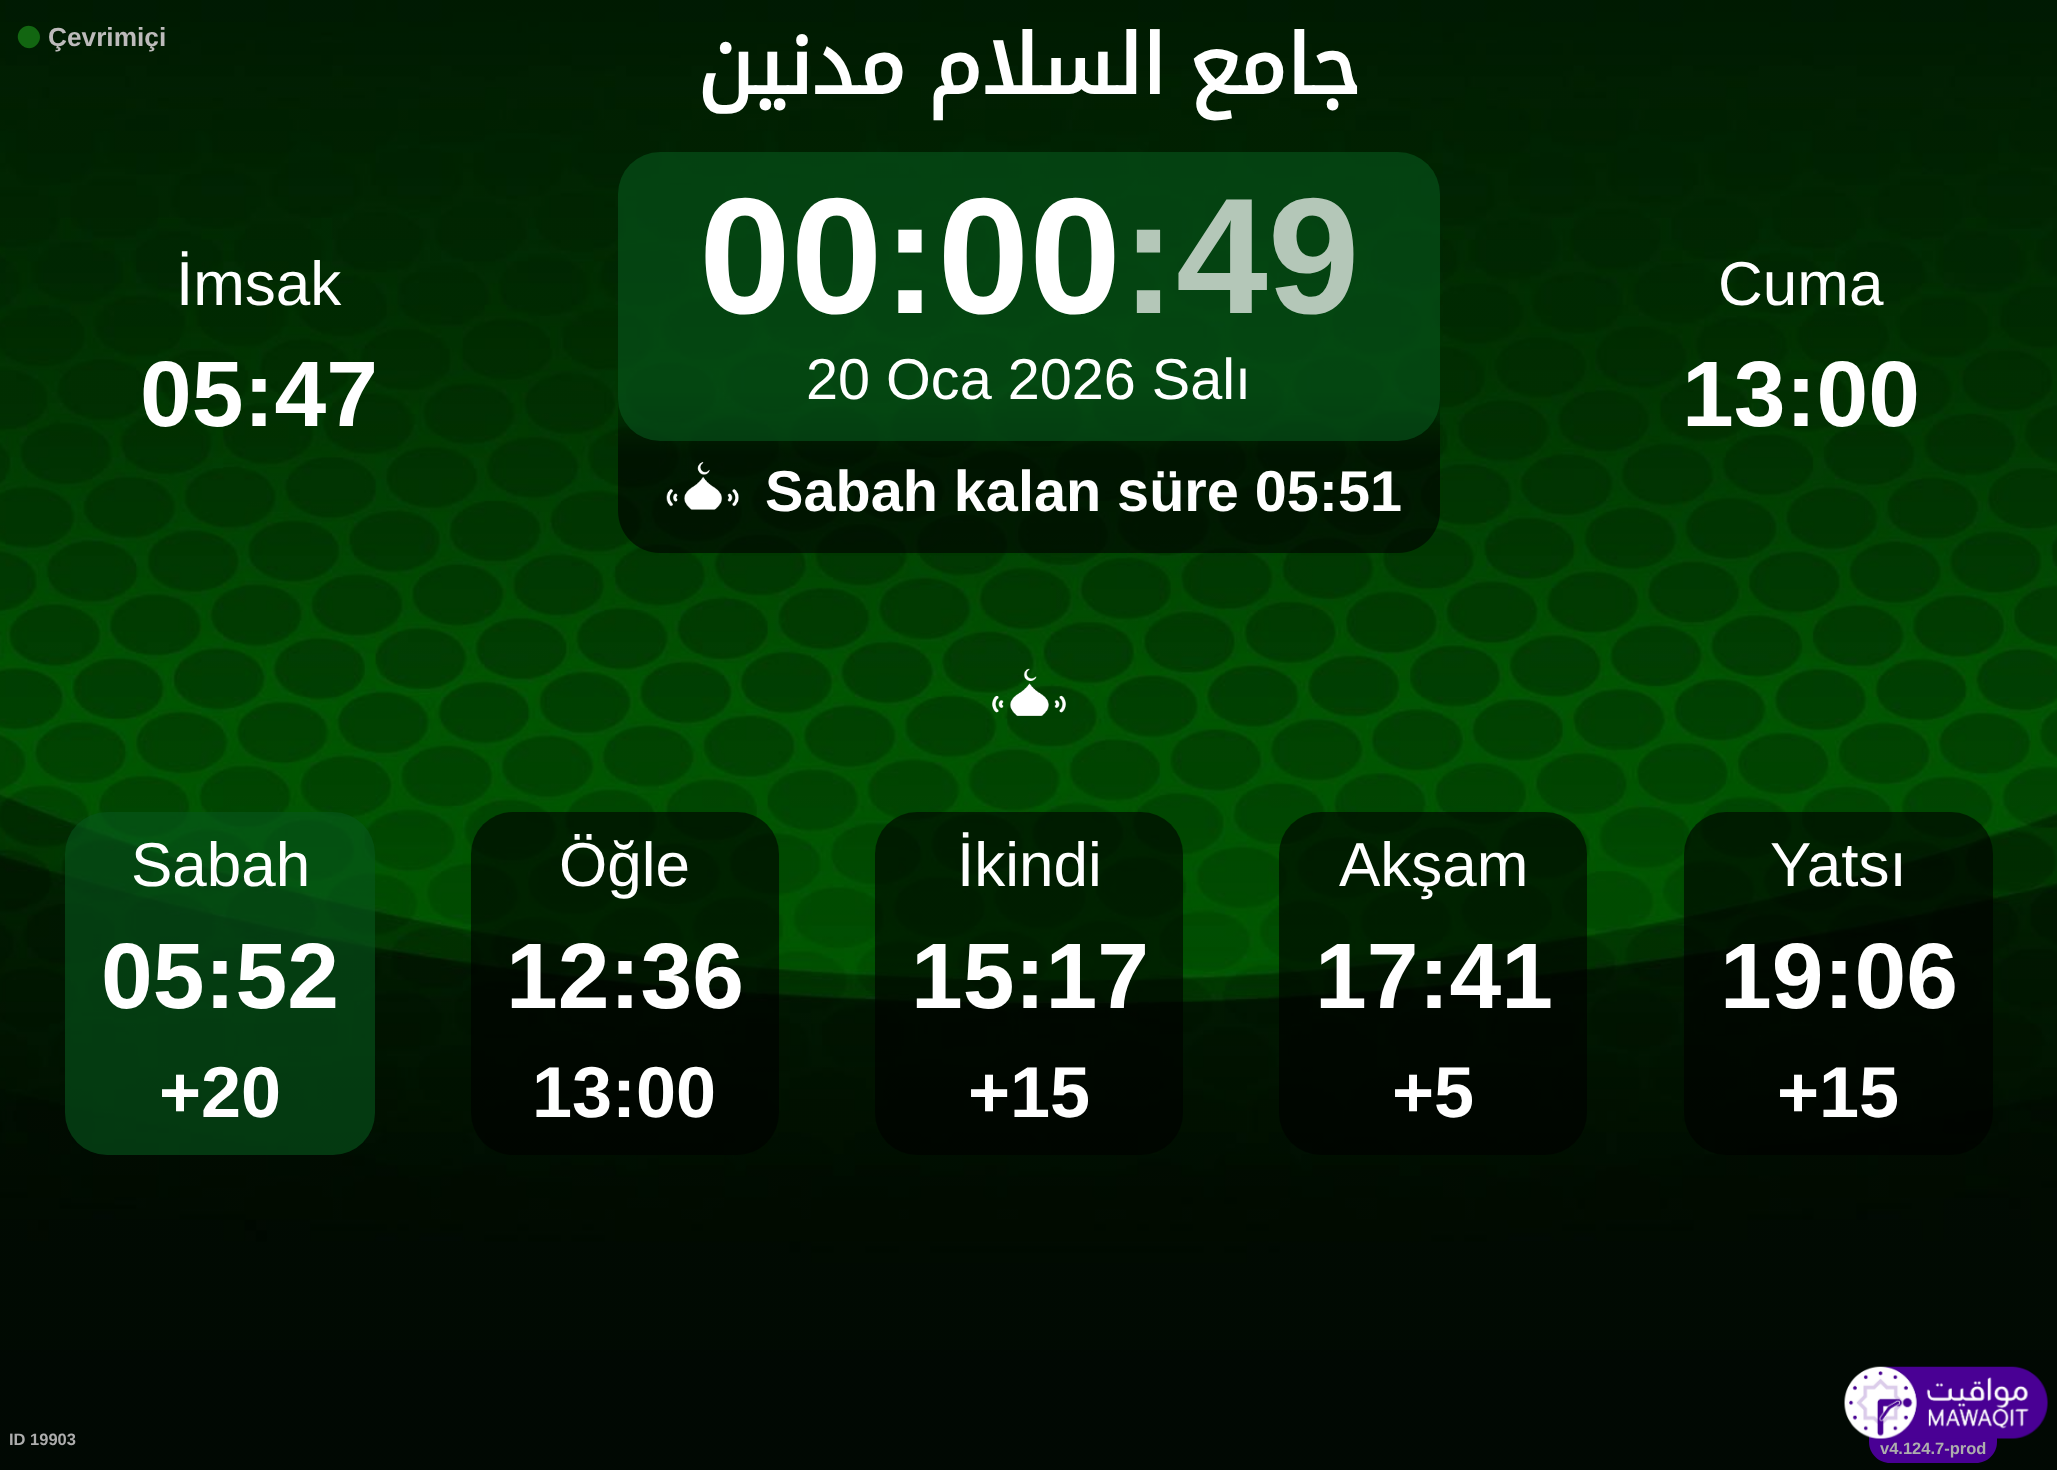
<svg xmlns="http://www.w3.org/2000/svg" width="2057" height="1470">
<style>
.a{font:bold 26.25px Liberation Sans;fill:#bdbbbb}
.b{font:bold 82.25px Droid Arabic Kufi;direction:rtl;fill:#fff}
.c{font:62px Liberation Sans;fill:#fff}
.d{font:bold 93px Liberation Sans;fill:#fff}
.e{font:bold 165px Liberation Sans;fill:#fff}
.f{font:bold 165px Liberation Sans;fill:#b4c7b8}
.g{font:57.6px Liberation Sans;fill:#fff}
.h{font:bold 57.6px Liberation Sans;fill:#fff}
.i{font:bold 72px Liberation Sans;fill:#fff}
.j{font:bold 16.5px Liberation Sans;fill:#adadad}
</style>
<rect width="100%" height="100%" fill="#fff"/>
<image href="1.png" x="0" y="0" width="2057" height="1470"/>
<path fill="#126611" d="M21 29c10.5-10 26 5.5 15.5 16c-10 10-25.5-5.5-15.5-16z"/>
<rect fill="#06571c99" x="618" y="152" width="822" height="289" rx="42"/>
<image href="2.png" x="666" y="461" width="73" height="49"/>
<image href="3.png" x="992" y="668" width="74" height="48"/>
<rect fill="#06571c99" x="65" y="812" width="310" height="343" rx="42"/>
<rect fill="#00000099" x="471" y="812" width="308" height="343" rx="42"/>
<rect fill="#00000099" x="875" y="812" width="308" height="343" rx="42"/>
<rect fill="#00000099" x="1279" y="812" width="308" height="343" rx="42"/>
<rect fill="#00000099" x="1684" y="812" width="309" height="343" rx="42"/>
<path fill="#490094" d="M1869 1432h128v10c0 11.5-9.5 21-21 21h-86c-11.5 0-21-9.5-21-21z"/>
<image href="4.png" x="1844" y="1366" width="204" height="73"/>
<text class="a" x="48" y="46">Çevrimiçi</text>
<text class="b" x="1360" y="94" word-spacing="-5">جامع السلام مدنين</text>
<text class="c" x="176" y="305">İmsak</text>
<text class="d" x="140" y="426">05:47</text>
<text class="e" x="699" y="313">00:00</text>
<text class="f" x="1121" y="313">:49</text>
<text class="g" x="806" y="399">20 Oca 2026 Salı</text>
<text class="h" x="765" y="511">Sabah kalan süre 05:51</text>
<text class="c" x="1718" y="305">Cuma</text>
<text class="d" x="1682" y="426">13:00</text>
<text class="c" x="131" y="886">Sabah</text>
<text class="d" x="101" y="1008">05:52</text>
<text class="i" x="159" y="1117">+20</text>
<text class="c" x="559" y="886">Öğle</text>
<text class="d" x="506" y="1008">12:36</text>
<text class="i" x="532" y="1117">13:00</text>
<text class="c" x="957" y="886">İkindi</text>
<text class="d" x="911" y="1008">15:17</text>
<text class="i" x="968" y="1117">+15</text>
<text class="c" x="1339" y="886">Akşam</text>
<text class="d" x="1315" y="1008">17:41</text>
<text class="i" x="1392" y="1117">+5</text>
<text class="c" x="1770" y="886">Yatsı</text>
<text class="d" x="1720" y="1008">19:06</text>
<text class="i" x="1777" y="1117">+15</text>
<text class="j" x="9" y="1445">ID 19903</text>
<text class="j" x="1880" y="1454">v4.124.7-prod</text>
</svg>
